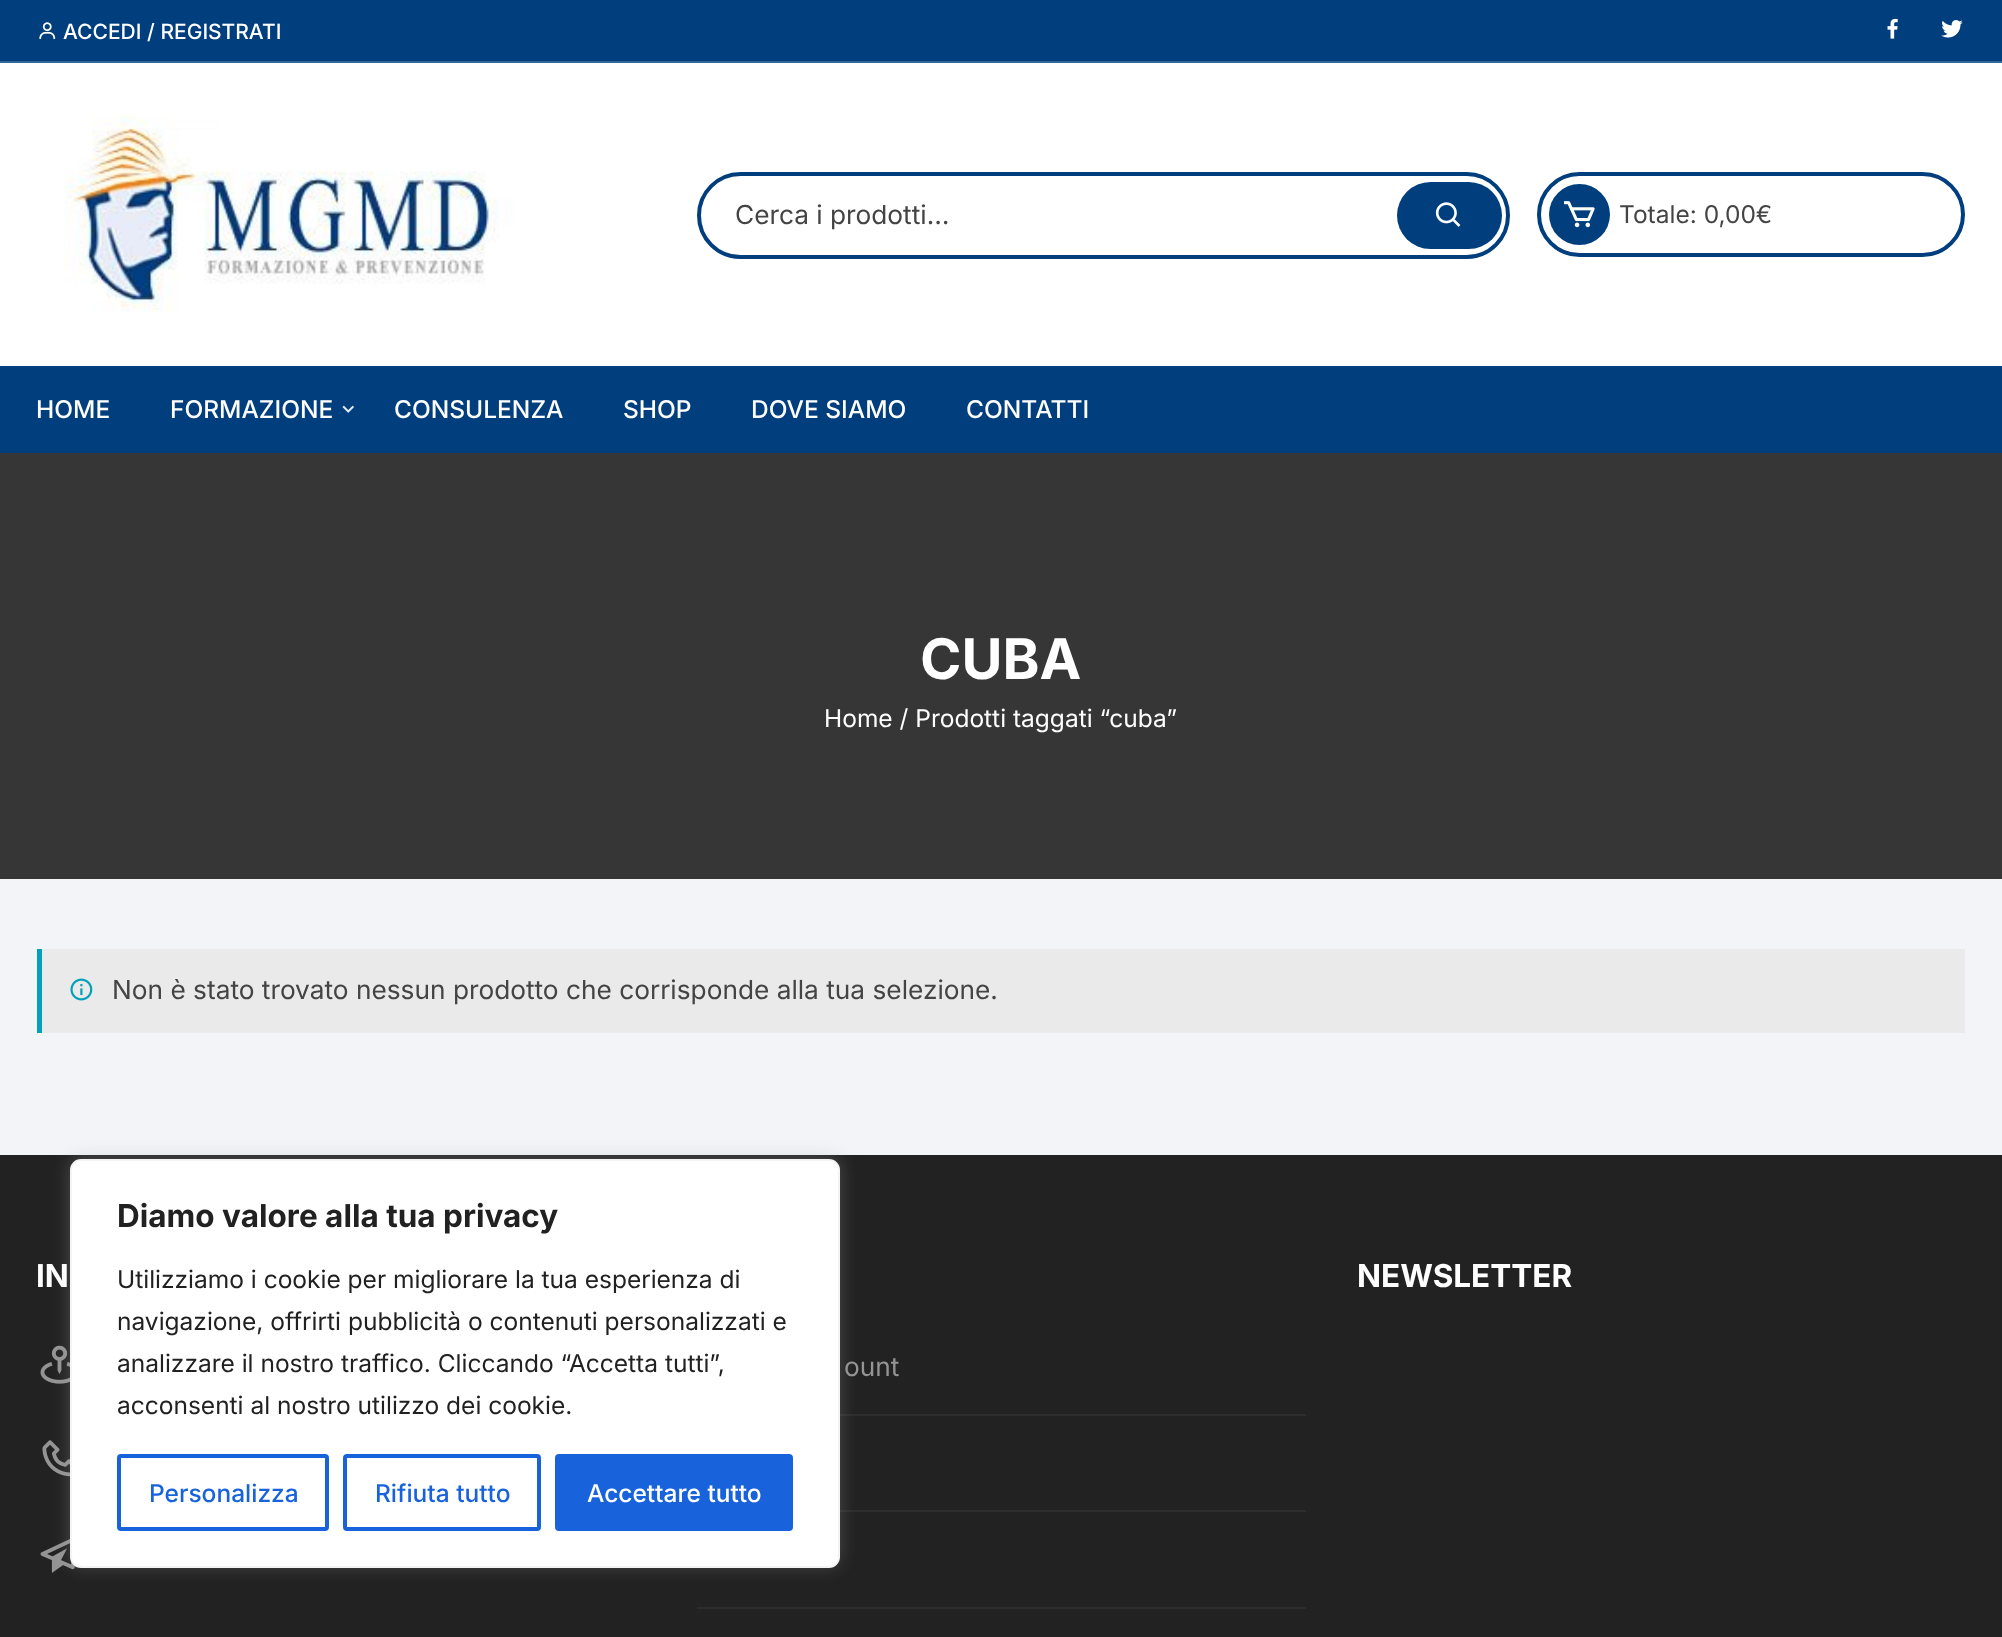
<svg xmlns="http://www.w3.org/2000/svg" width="2002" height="1637">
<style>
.a{font:500 21px Inter;fill:#fff}
.b{font:26.25px Inter;fill:#444}
.c{font:24.5px Inter;fill:#444}
.d{font:500 24.5px Inter;fill:#fff}
.e{font:bold 56px Inter;fill:#fff}
.f{font:24.5px Inter;fill:#fff}
.g{font:bold 31.5px Inter;fill:#fff}
.h{font:26.25px Inter;fill:#949494}
.i{font:bold 31.5px Inter;fill:#212121}
.j{font:24.5px Inter;fill:#212121}
.k{font:500 24.5px Inter;fill:#1863dc}
</style>
<rect width="100%" height="100%" fill="#f3f4f8"/>
<path fill="#fff" d="M0 63h2002v303H0z"/>
<path fill="#013e7d" d="M0 0h2002v61H0z"/>
<path fill="#346597" d="M0 61h2002v2H0z"/>
<image href="1.png" x="39" y="22" width="17" height="17"/>
<image href="2.png" x="1887" y="18" width="11" height="21"/>
<image href="3.png" x="1941" y="20" width="22" height="18"/>
<image href="4.png" x="64" y="115" width="449" height="197"/>
<rect fill="none" stroke="#013e7d" stroke-width="4" x="699" y="174" width="809" height="83" rx="41.5"/>
<rect fill="#013e7d" x="1397" y="182" width="105" height="67" rx="33.5"/>
<image href="5.png" x="1435" y="202" width="26" height="25"/>
<rect fill="none" stroke="#013e7d" stroke-width="4" x="1539" y="174" width="424" height="81" rx="40.5"/>
<circle fill="#013e7d" cx="1579.5" cy="214.5" r="30.5"/>
<image href="6.png" x="1564" y="201" width="31" height="27"/>
<path fill="#013e7d" d="M0 366h2002v87H0z"/>
<image href="7.png" x="342" y="405" width="12" height="8"/>
<path fill="#363636" d="M0 453h2002v426H0z"/>
<path fill="#eaeaea" d="M42 949h1923v84H42z"/>
<path fill="#01a1b9" d="M37 949h5v84H37z"/>
<image href="8.png" x="70" y="978" width="23" height="23"/>
<path fill="#222" d="M0 1155h2002v482H0z"/>
<image href="9.png" x="40" y="1345" width="30" height="39"/>
<image href="10.png" x="42" y="1440" width="28" height="37"/>
<image href="11.png" x="40" y="1539" width="35" height="34"/>
<path fill="#2d2d2d" d="M840 1414h466v2H840z"/>
<path fill="#2d2d2d" d="M840 1510h466v2H840z"/>
<path fill="#2d2d2d" d="M697 1607h609v2H697z"/>
<rect fill="#acabab4d" filter="blur(9px)" x="70" y="1157" width="770" height="409" rx="11"/>
<rect fill="#fff" stroke="#f4f4f4" stroke-width="2" x="71" y="1160" width="768" height="407" rx="10"/>
<rect fill="none" stroke="#1863dc" stroke-width="4" x="119" y="1456" width="208" height="73" rx="2"/>
<rect fill="none" stroke="#1863dc" stroke-width="4" x="345" y="1456" width="194" height="73" rx="2"/>
<rect fill="#1863dc" stroke="#1863dc" stroke-width="4" x="557" y="1456" width="234" height="73" rx="2"/>
<text class="a" x="63" y="39">ACCEDI / REGISTRATI</text>
<text class="b" x="735" y="224">Cerca i prodotti…</text>
<text class="c" x="1619" y="223">Totale: 0,00€</text>
<text class="d" x="36" y="418">HOME</text>
<text class="d" x="170" y="418">FORMAZIONE</text>
<text class="d" x="394" y="418">CONSULENZA</text>
<text class="d" x="623" y="418">SHOP</text>
<text class="d" x="751" y="418">DOVE SIAMO</text>
<text class="d" x="966" y="418">CONTATTI</text>
<text class="e" x="920" y="679">CUBA</text>
<text class="f" x="824" y="727">Home / Prodotti taggati “cuba”</text>
<text class="b" x="112" y="999">Non è stato trovato nessun prodotto che corrisponde alla tua selezione.</text>
<text class="g" x="36" y="1287">IN</text>
<text class="g" x="1357" y="1287">NEWSLETTER</text>
<text class="h" x="844" y="1376">ount</text>
<text class="i" x="117" y="1227">Diamo valore alla tua privacy</text>
<text class="j" x="117" y="1288">Utilizziamo i cookie per migliorare la tua esperienza di</text>
<text class="j" x="117" y="1330">navigazione, offrirti pubblicità o contenuti personalizzati e</text>
<text class="j" x="117" y="1372">analizzare il nostro traffico. Cliccando “Accetta tutti”,</text>
<text class="j" x="117" y="1414">acconsenti al nostro utilizzo dei cookie.</text>
<text class="k" x="149" y="1502">Personalizza</text>
<text class="k" x="375" y="1502">Rifiuta tutto</text>
<text class="d" x="587" y="1502">Accettare tutto</text>
</svg>
